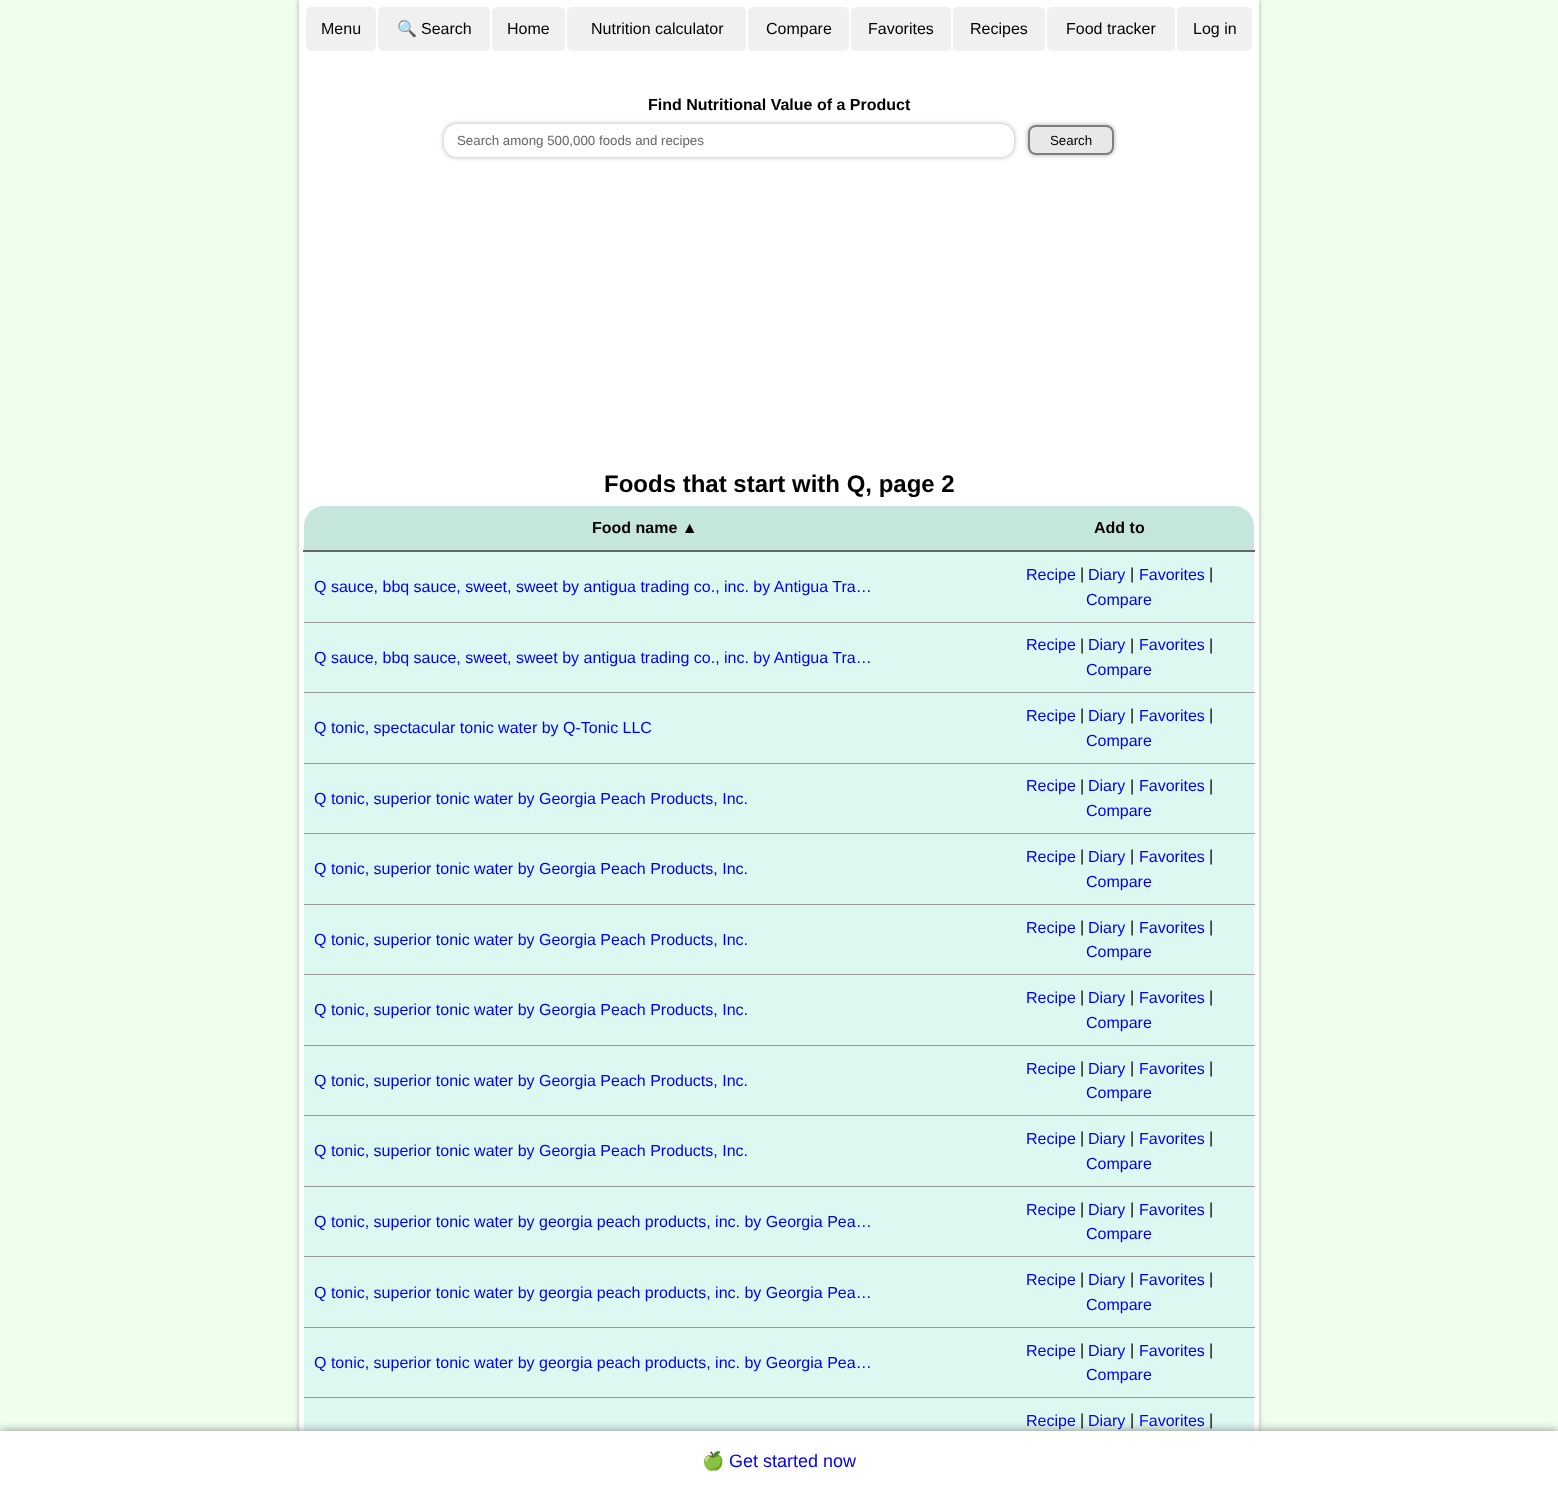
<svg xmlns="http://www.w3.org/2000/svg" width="1558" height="1491">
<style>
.a{font:16px Liberation Sans;fill:#000}
.b{font:16px Noto Color Emoji;fill:#000}
.c{font:bold 16px Liberation Sans;fill:#000}
.d{font:13.3px Liberation Sans;fill:#666}
.e{font:13.3px Liberation Sans;fill:#000}
.f{font:bold 24px Liberation Sans;fill:#000}
.g{font:16px Liberation Sans;fill:#00e}
.h{font:18px Noto Color Emoji;fill:#00e}
.i{font:18px Liberation Sans;fill:#00e}
</style>
<rect width="100%" height="100%" fill="#efe"/>
<path fill="#aaa" filter="blur(2.5px)" d="M299 0h960v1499H299z"/>
<path fill="#fff" d="M299 0h960v1431H299z"/>
<rect fill="#f0f0f0" x="306" y="7" width="70" height="44" rx="5"/>
<rect fill="#f0f0f0" x="378" y="7" width="112" height="44" rx="5"/>
<rect fill="#f0f0f0" x="492" y="7" width="73" height="44" rx="5"/>
<rect fill="#f0f0f0" x="567" y="7" width="179" height="44" rx="5"/>
<rect fill="#f0f0f0" x="748" y="7" width="101" height="44" rx="5"/>
<rect fill="#f0f0f0" x="851" y="7" width="100" height="44" rx="5"/>
<rect fill="#f0f0f0" x="953" y="7" width="92" height="44" rx="5"/>
<rect fill="#f0f0f0" x="1047" y="7" width="128" height="44" rx="5"/>
<rect fill="#f0f0f0" x="1177" y="7" width="75" height="44" rx="5"/>
<rect fill="#aaa" filter="blur(2.5px)" x="444" y="124" width="570" height="33" rx="13"/>
<rect fill="#fff" stroke="#fff" stroke-width="3" x="445.5" y="125.5" width="567" height="30" rx="11.5"/>
<rect fill="#aaa" filter="blur(2.5px)" x="1028" y="125" width="86" height="30" rx="8"/>
<rect fill="#e8e8e8" stroke="#808080" stroke-width="2" x="1029" y="126" width="84" height="28" rx="7"/>
<path fill="#c5e6dd" d="M324 506h661v45h-681v-25c0-11 9-20 20-20z"/>
<path fill="#c5e6dd" d="M985 506h249c11 0 20 9 20 20v25h-269z"/>
<path fill="#666" d="M303 550h952v2H303z"/>
<path fill="#ddf8f1" d="M304 552h950v70H304z"/>
<path fill="#999" d="M304 622h951v1H304z"/>
<path fill="#ddf8f1" d="M304 623h950v69H304z"/>
<path fill="#999" d="M304 692h951v1H304z"/>
<path fill="#ddf8f1" d="M304 693h950v70H304z"/>
<path fill="#999" d="M304 763h951v1H304z"/>
<path fill="#ddf8f1" d="M304 764h950v69H304z"/>
<path fill="#999" d="M304 833h951v1H304z"/>
<path fill="#ddf8f1" d="M304 834h950v70H304z"/>
<path fill="#999" d="M304 904h951v1H304z"/>
<path fill="#ddf8f1" d="M304 905h950v69H304z"/>
<path fill="#999" d="M304 974h951v1H304z"/>
<path fill="#ddf8f1" d="M304 975h950v70H304z"/>
<path fill="#999" d="M304 1045h951v1H304z"/>
<path fill="#ddf8f1" d="M304 1046h950v69H304z"/>
<path fill="#999" d="M304 1115h951v1H304z"/>
<path fill="#ddf8f1" d="M304 1116h950v70H304z"/>
<path fill="#999" d="M304 1186h951v1H304z"/>
<path fill="#ddf8f1" d="M304 1187h950v69H304z"/>
<path fill="#999" d="M304 1256h951v1H304z"/>
<path fill="#ddf8f1" d="M304 1257h950v70H304z"/>
<path fill="#999" d="M304 1327h951v1H304z"/>
<path fill="#ddf8f1" d="M304 1328h950v69H304z"/>
<path fill="#999" d="M304 1397h951v1H304z"/>
<path fill="#ddf8f1" d="M304 1398h950v33H304z"/>
<path fill="#888" filter="blur(5px)" d="M0 1431h1558v60H0z"/>
<path fill="#fff" d="M0 1431h1558v60H0z"/>
<text class="a" x="321" y="34">Menu</text>
<text class="b" x="397" y="34">🔍</text>
<text class="a" x="421" y="34">Search</text>
<text class="a" x="507" y="34">Home</text>
<text class="a" x="591" y="34">Nutrition calculator</text>
<text class="a" x="766" y="34">Compare</text>
<text class="a" x="868" y="34">Favorites</text>
<text class="a" x="970" y="34">Recipes</text>
<text class="a" x="1066" y="34">Food tracker</text>
<text class="a" x="1193" y="34">Log in</text>
<text class="c" x="648" y="110">Find Nutritional Value of a Product</text>
<text class="d" x="457" y="145">Search among 500,000 foods and recipes</text>
<text class="e" x="1050" y="145">Search</text>
<text class="f" x="604" y="492">Foods that start with Q, page 2</text>
<text class="c" x="592" y="533">Food name ▲</text>
<text class="c" x="1094" y="533">Add to</text>
<text class="g" x="314" y="592">Q sauce, bbq sauce, sweet, sweet by antigua trading co., inc. by Antigua Tra…</text>
<text class="g" x="1026" y="580">Recipe</text>
<text class="a" x="1080" y="579">|</text>
<text class="g" x="1088" y="580">Diary</text>
<text class="a" x="1130" y="579">|</text>
<text class="g" x="1139" y="580">Favorites</text>
<text class="a" x="1209" y="579">|</text>
<text class="g" x="1086" y="605">Compare</text>
<text class="g" x="314" y="663">Q sauce, bbq sauce, sweet, sweet by antigua trading co., inc. by Antigua Tra…</text>
<text class="g" x="1026" y="650">Recipe</text>
<text class="a" x="1080" y="650">|</text>
<text class="g" x="1088" y="650">Diary</text>
<text class="a" x="1130" y="650">|</text>
<text class="g" x="1139" y="650">Favorites</text>
<text class="a" x="1209" y="650">|</text>
<text class="g" x="1086" y="675">Compare</text>
<text class="g" x="314" y="733">Q tonic, spectacular tonic water by Q-Tonic LLC</text>
<text class="g" x="1026" y="721">Recipe</text>
<text class="a" x="1080" y="720">|</text>
<text class="g" x="1088" y="721">Diary</text>
<text class="a" x="1130" y="720">|</text>
<text class="g" x="1139" y="721">Favorites</text>
<text class="a" x="1209" y="720">|</text>
<text class="g" x="1086" y="746">Compare</text>
<text class="g" x="314" y="804">Q tonic, superior tonic water by Georgia Peach Products, Inc.</text>
<text class="g" x="1026" y="791">Recipe</text>
<text class="a" x="1080" y="791">|</text>
<text class="g" x="1088" y="791">Diary</text>
<text class="a" x="1130" y="791">|</text>
<text class="g" x="1139" y="791">Favorites</text>
<text class="a" x="1209" y="791">|</text>
<text class="g" x="1086" y="816">Compare</text>
<text class="g" x="314" y="874">Q tonic, superior tonic water by Georgia Peach Products, Inc.</text>
<text class="g" x="1026" y="862">Recipe</text>
<text class="a" x="1080" y="861">|</text>
<text class="g" x="1088" y="862">Diary</text>
<text class="a" x="1130" y="861">|</text>
<text class="g" x="1139" y="862">Favorites</text>
<text class="a" x="1209" y="861">|</text>
<text class="g" x="1086" y="887">Compare</text>
<text class="g" x="314" y="945">Q tonic, superior tonic water by Georgia Peach Products, Inc.</text>
<text class="g" x="1026" y="933">Recipe</text>
<text class="a" x="1080" y="932">|</text>
<text class="g" x="1088" y="933">Diary</text>
<text class="a" x="1130" y="932">|</text>
<text class="g" x="1139" y="933">Favorites</text>
<text class="a" x="1209" y="932">|</text>
<text class="g" x="1086" y="957">Compare</text>
<text class="g" x="314" y="1015">Q tonic, superior tonic water by Georgia Peach Products, Inc.</text>
<text class="g" x="1026" y="1003">Recipe</text>
<text class="a" x="1080" y="1002">|</text>
<text class="g" x="1088" y="1003">Diary</text>
<text class="a" x="1130" y="1002">|</text>
<text class="g" x="1139" y="1003">Favorites</text>
<text class="a" x="1209" y="1002">|</text>
<text class="g" x="1086" y="1028">Compare</text>
<text class="g" x="314" y="1086">Q tonic, superior tonic water by Georgia Peach Products, Inc.</text>
<text class="g" x="1026" y="1074">Recipe</text>
<text class="a" x="1080" y="1073">|</text>
<text class="g" x="1088" y="1074">Diary</text>
<text class="a" x="1130" y="1073">|</text>
<text class="g" x="1139" y="1074">Favorites</text>
<text class="a" x="1209" y="1073">|</text>
<text class="g" x="1086" y="1098">Compare</text>
<text class="g" x="314" y="1156">Q tonic, superior tonic water by Georgia Peach Products, Inc.</text>
<text class="g" x="1026" y="1144">Recipe</text>
<text class="a" x="1080" y="1143">|</text>
<text class="g" x="1088" y="1144">Diary</text>
<text class="a" x="1130" y="1143">|</text>
<text class="g" x="1139" y="1144">Favorites</text>
<text class="a" x="1209" y="1143">|</text>
<text class="g" x="1086" y="1169">Compare</text>
<text class="g" x="314" y="1227">Q tonic, superior tonic water by georgia peach products, inc. by Georgia Pea…</text>
<text class="g" x="1026" y="1215">Recipe</text>
<text class="a" x="1080" y="1214">|</text>
<text class="g" x="1088" y="1215">Diary</text>
<text class="a" x="1130" y="1214">|</text>
<text class="g" x="1139" y="1215">Favorites</text>
<text class="a" x="1209" y="1214">|</text>
<text class="g" x="1086" y="1239">Compare</text>
<text class="g" x="314" y="1298">Q tonic, superior tonic water by georgia peach products, inc. by Georgia Pea…</text>
<text class="g" x="1026" y="1285">Recipe</text>
<text class="a" x="1080" y="1284">|</text>
<text class="g" x="1088" y="1285">Diary</text>
<text class="a" x="1130" y="1284">|</text>
<text class="g" x="1139" y="1285">Favorites</text>
<text class="a" x="1209" y="1284">|</text>
<text class="g" x="1086" y="1310">Compare</text>
<text class="g" x="314" y="1368">Q tonic, superior tonic water by georgia peach products, inc. by Georgia Pea…</text>
<text class="g" x="1026" y="1356">Recipe</text>
<text class="a" x="1080" y="1355">|</text>
<text class="g" x="1088" y="1356">Diary</text>
<text class="a" x="1130" y="1355">|</text>
<text class="g" x="1139" y="1356">Favorites</text>
<text class="a" x="1209" y="1355">|</text>
<text class="g" x="1086" y="1380">Compare</text>
<text class="g" x="1026" y="1426">Recipe</text>
<text class="a" x="1080" y="1425">|</text>
<text class="g" x="1088" y="1426">Diary</text>
<text class="a" x="1130" y="1425">|</text>
<text class="g" x="1139" y="1426">Favorites</text>
<text class="a" x="1209" y="1425">|</text>
<text class="h" x="702" y="1467">🍏</text>
<text class="i" x="729" y="1467">Get started now</text>
</svg>
